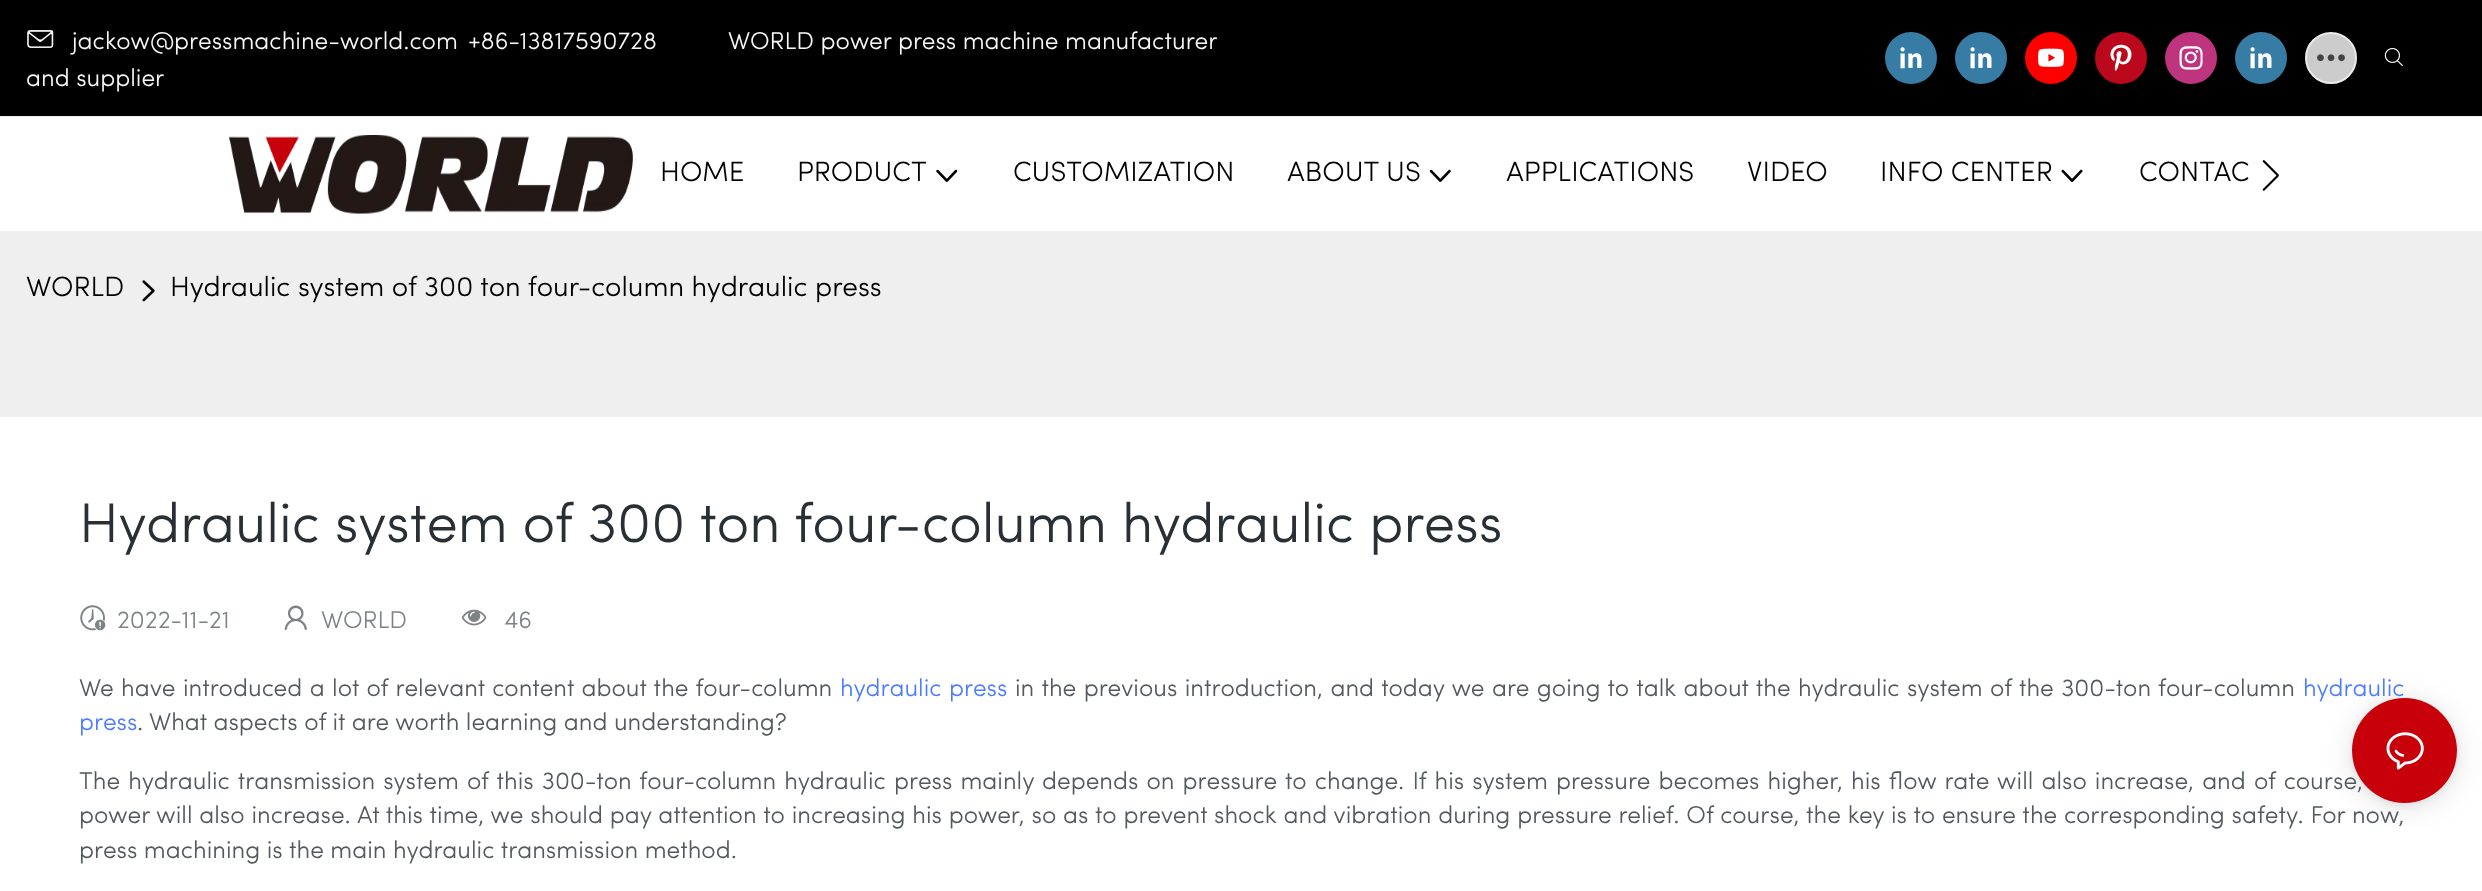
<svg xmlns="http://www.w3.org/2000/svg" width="2482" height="891">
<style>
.a{font:300 24.5px Sofia;fill:#f8f8f8}
.b{font:300 28px Sofia;fill:#000}
.c{font:300 56px Sofia;fill:#283036}
.d{font:300 24.5px Sofia;fill:#7e8386}
.e{font:300 24.5px Sofia;fill:#53595e}
.f{font:300 24.5px Sofia;fill:#4d7cfe}
</style>
<rect width="100%" height="100%" fill="#efefef"/>
<path fill="#000" d="M0 0h2482v116H0z"/>
<image href="1.png" x="27" y="30" width="27" height="18"/>
<circle fill="#377ca5" cx="1911" cy="58" r="26"/>
<image href="2.png" x="1900" y="47" width="22" height="22"/>
<circle fill="#377ca5" cx="1981" cy="58" r="26"/>
<image href="2.png" x="1970" y="47" width="22" height="22"/>
<circle fill="#f00" cx="2051" cy="58" r="26"/>
<image href="3.png" x="2038" y="48" width="26" height="19"/>
<circle fill="#bc081c" cx="2121" cy="58" r="26"/>
<image href="4.png" x="2110" y="44" width="22" height="27"/>
<circle fill="#be347f" cx="2191" cy="58" r="26"/>
<image href="5.png" x="2179" y="46" width="24" height="24"/>
<circle fill="#377ca5" cx="2261" cy="58" r="26"/>
<image href="2.png" x="2250" y="47" width="22" height="22"/>
<circle fill="#ccc" stroke="#ebebeb" stroke-width="2" cx="2331" cy="58" r="25"/>
<image href="6.png" x="2317" y="54" width="28" height="8"/>
<image href="7.png" x="2384" y="47" width="19" height="20"/>
<path fill="#fff" d="M0 117h2482v114H0z"/>
<image href="8.png" x="229" y="135" width="404" height="79"/>
<image href="9.png" x="936" y="169" width="22" height="13"/>
<image href="10.png" x="1429" y="169" width="22" height="13"/>
<image href="11.png" x="2061" y="169" width="22" height="13"/>
<image href="12.png" x="2262" y="160" width="17" height="31"/>
<image href="13.png" x="142" y="280" width="13" height="22"/>
<path fill="#fff" d="M0 417h2482v474H0z"/>
<image href="14.png" x="80" y="605" width="26" height="26"/>
<image href="15.png" x="284" y="605" width="23" height="25"/>
<image href="16.png" x="461" y="609" width="26" height="17"/>
<rect fill="#0000001f" filter="blur(14px)" x="2352" y="702" width="105" height="105" rx="52.5"/>
<rect fill="#0000000f" filter="blur(3.5px)" x="2352" y="700" width="105" height="105" rx="52.5"/>
<text class="a" x="72" y="49">jackow@pressmachine-world.com</text>
<text class="a" x="468" y="49">+86-13817590728</text>
<text class="a" x="728" y="49">WORLD power press machine manufacturer</text>
<text class="a" x="26" y="86">and supplier</text>
<text class="b" x="660" y="181">HOME</text>
<text class="b" x="797" y="181">PRODUCT</text>
<text class="b" x="1013" y="181">CUSTOMIZATION</text>
<text class="b" x="1287" y="181">ABOUT US</text>
<text class="b" x="1506" y="181">APPLICATIONS</text>
<text class="b" x="1747" y="181">VIDEO</text>
<text class="b" x="1880" y="181">INFO CENTER</text>
<text class="b" x="2139" y="181">CONTAC</text>
<text class="b" x="26" y="296">WORLD</text>
<text class="b" x="170" y="296">Hydraulic system of 300 ton four-column hydraulic press</text>
<text class="c" x="79" y="542">Hydraulic system of 300 ton four-column hydraulic press</text>
<text class="d" x="117" y="628">2022-11-21</text>
<text class="d" x="321" y="628">WORLD</text>
<text class="d" x="504" y="628">46</text>
<text class="e" x="79" y="696" word-spacing="0.9">We have introduced a lot of relevant content about the four-column</text>
<text class="f" x="840" y="696" word-spacing="0.9">hydraulic press</text>
<text class="e" x="1015" y="696" word-spacing="0.9">in the previous introduction, and today we are going to talk about the hydraulic system of the 300-ton four-column</text>
<text class="f" x="2303" y="696">hydraulic</text>
<text class="f" x="79" y="730">press</text>
<text class="e" x="137" y="730">. What aspects of it are worth learning and understanding?</text>
<text class="e" x="79" y="789" word-spacing="1.6">The hydraulic transmission system of this 300-ton four-column hydraulic press mainly depends on pressure to change. If his system pressure becomes higher, his flow rate will also increase, and of course,</text>
<text class="e" x="79" y="823" word-spacing="0.3">power will also increase. At this time, we should pay attention to increasing his power, so as to prevent shock and vibration during pressure relief. Of course, the key is to ensure the corresponding safety. For now,</text>
<text class="e" x="79" y="858">press machining is the main hydraulic transmission method.</text>
<circle fill="#c7000a" cx="2404.5" cy="750.5" r="52.5"/>
<image href="17.png" x="2386" y="732" width="38" height="38"/>
</svg>
